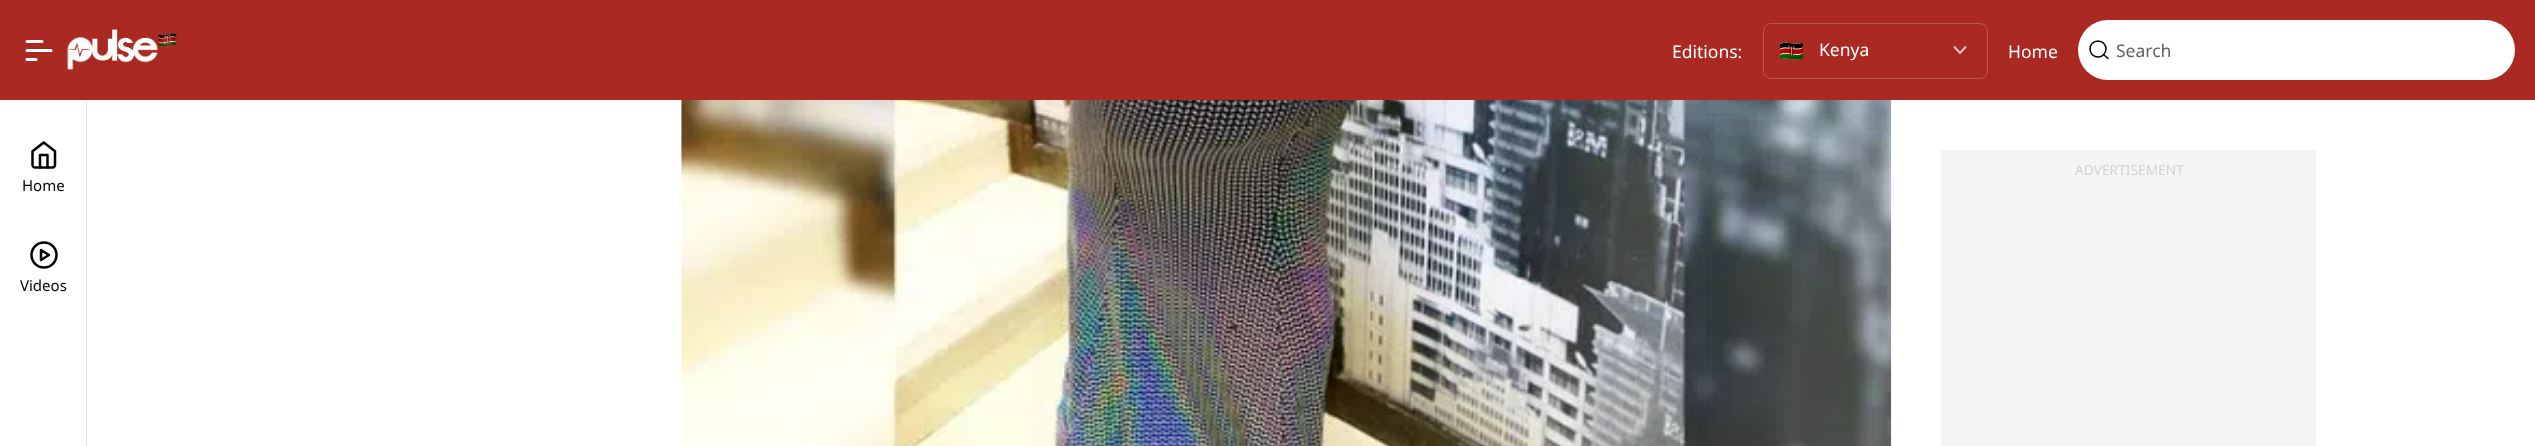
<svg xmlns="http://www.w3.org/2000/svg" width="2535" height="446">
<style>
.a{font:17.5px Noto Sans;fill:#fff}
.b{font:20px Noto Color Emoji;fill:#fff}
.c{font:17.5px Noto Sans;fill:#636262}
.d{font:13.75px Noto Sans;fill:#d3d3d3}
.e{font:15px Noto Sans;fill:#000}
</style>
<rect width="100%" height="100%" fill="#fff"/>
<path fill="#ab2923" d="M0 0h2535v100H0z"/>
<path fill="none" stroke="#fff" stroke-width="3" stroke-linecap="round" stroke-linejoin="round" d="M27 41.5h15m-15 9h24m-24 9h9"/>
<image href="1.png" x="67" y="29" width="91" height="41"/>
<image href="2.png" x="158" y="33" width="19" height="13"/>
<rect fill="none" stroke="#bc544f" x="1763.5" y="23.5" width="224" height="55" rx="7.5"/>
<path fill="none" stroke="#e6bfbd" stroke-width="1.9" stroke-linecap="round" stroke-linejoin="round" d="M1954.5 47l5.5 6l5.5-6"/>
<rect fill="#fff" x="2078" y="20" width="437" height="60" rx="30"/>
<circle fill="none" stroke="#000" stroke-width="1.5" cx="2098" cy="49" r="8"/>
<path fill="none" stroke="#000" stroke-width="1.5" stroke-linecap="round" stroke-linejoin="round" d="M2108 58.5l-4.5-4"/>
<image href="3.png" x="681" y="100" width="1211" height="346"/>
<path fill="#f5f5f5" d="M1941 150h375v296H1941z"/>
<path fill="#e6e6e6" d="M86 100h1v346H86z"/>
<image href="4.png" x="31" y="141" width="26" height="28"/>
<circle fill="none" stroke="#000" stroke-width="2.5" cx="44" cy="255" r="12.5"/>
<path fill="none" stroke="#000" stroke-width="2.5" stroke-linecap="round" stroke-linejoin="round" d="M41 250l8 5l-8 5z"/>
<text class="a" x="1672" y="58">Editions:</text>
<text class="b" x="1779" y="58">🇰🇪</text>
<text class="a" x="1819" y="56">Kenya</text>
<text class="a" x="2008" y="58">Home</text>
<text class="c" x="2116" y="57">Search</text>
<text class="d" x="2075" y="175">ADVERTISEMENT</text>
<text class="e" x="22" y="191">Home</text>
<text class="e" x="20" y="291">Videos</text>
</svg>
